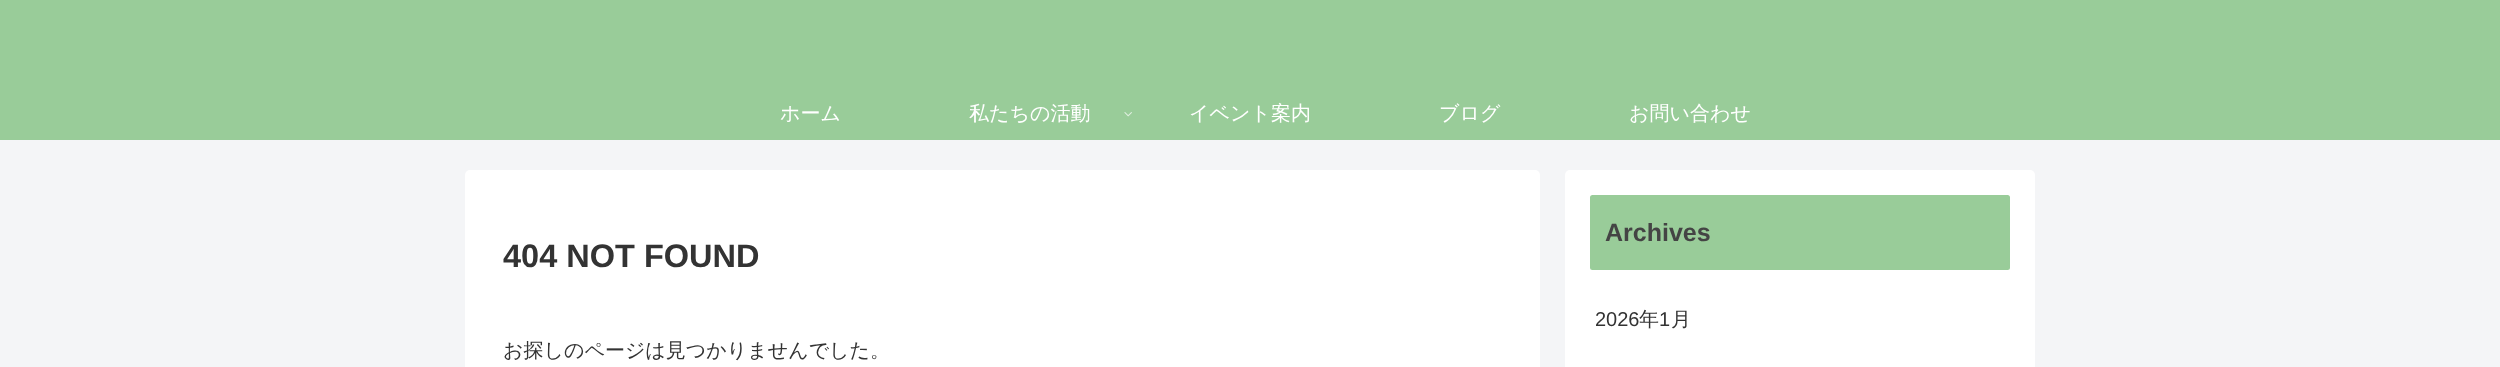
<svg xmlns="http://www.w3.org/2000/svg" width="2500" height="367">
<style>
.a{font:500 20px WenQuanYi Zen Hei;fill:#fff}
.b{font:bold 32.5px Liberation Sans;fill:#333}
.c{font:500 20px WenQuanYi Zen Hei;fill:#333}
.d{font:bold 25px Liberation Sans;fill:#444}
.e{font:20px Liberation Sans;fill:#333}
</style>
<rect width="100%" height="100%" fill="#f4f5f7"/>
<path fill="#9c9" d="M0 0h2500v140H0z"/>
<image href="1.png" x="1124" y="112" width="8" height="5"/>
<rect fill="#fff" x="465" y="170" width="1075" height="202" rx="5"/>
<rect fill="#fff" x="1565" y="170" width="470" height="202" rx="5"/>
<rect fill="#9c9" x="1590" y="195" width="420" height="75" rx="2.5"/>
<text class="a" x="780" y="120">ホーム</text>
<text class="a" x="969" y="120">私たちの活動</text>
<text class="a" x="1189" y="120">イベント案内</text>
<text class="a" x="1439" y="120">ブログ</text>
<text class="a" x="1629" y="120">お問い合わせ</text>
<text class="b" x="503" y="267">404 NOT FOUND</text>
<text class="c" x="503" y="357">お探しのページは見つかりませんでした。</text>
<text class="d" x="1605" y="241">Archives</text>
<text class="e" x="1595" y="326">2026</text>
<text class="c" x="1639" y="326">年</text>
<text class="e" x="1659" y="326">1</text>
<text class="c" x="1671" y="326">月</text>
</svg>
